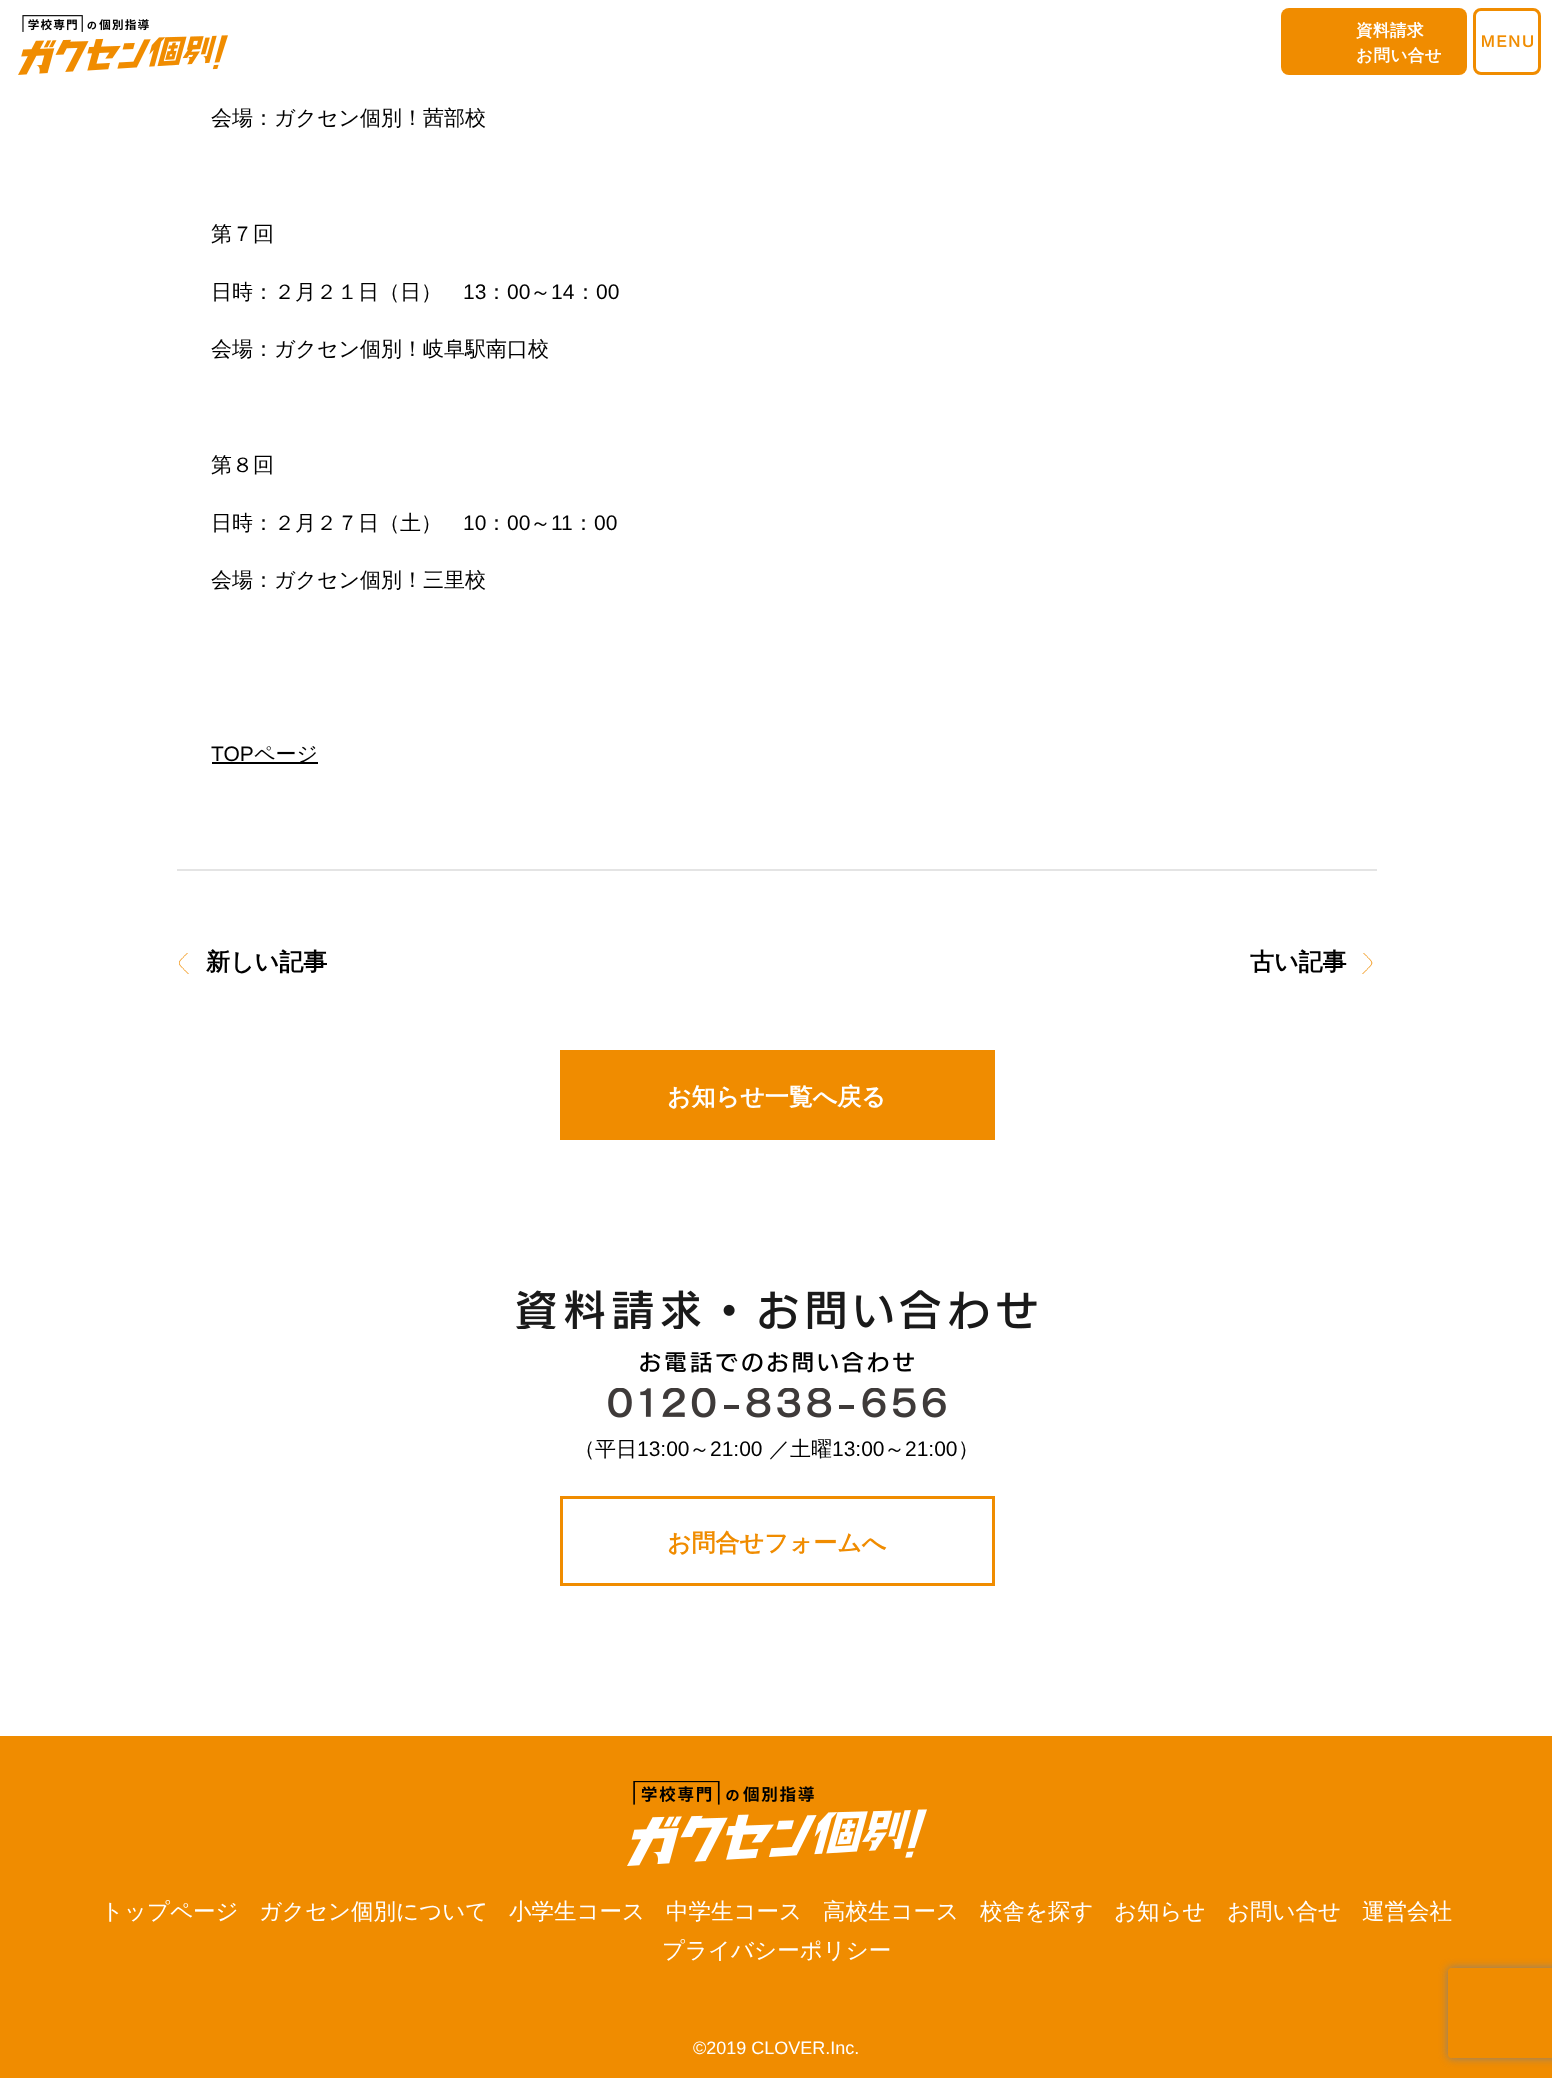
<svg xmlns="http://www.w3.org/2000/svg" width="1552" height="2078">
<style>
.a{font:bold 16.5px WenQuanYi Zen Hei;letter-spacing:0.5px;fill:#fff}
.b{font:500 21px WenQuanYi Zen Hei;fill:#000}
.c{font:21px Liberation Sans;fill:#000}
.d{font:bold 24px WenQuanYi Zen Hei;fill:#000}
.e{font:bold 24px WenQuanYi Zen Hei;fill:#fff}
.f{font:bold 24px WenQuanYi Zen Hei;fill:#f08c00}
.g{font:500 22.5px WenQuanYi Zen Hei;fill:#fff}
.h{font:18px Liberation Sans;fill:#fff}
</style>
<defs>
<clipPath id="clip1"><path d="M179 953h12v21H179z"/></clipPath>
<clipPath id="clip2"><path d="M1362 953h12v21H1362z"/></clipPath>
<clipPath id="clip3"><path d="M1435 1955h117v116h-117zm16 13h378c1.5 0 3 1.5 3 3v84c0 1.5-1.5 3-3 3h-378c-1.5 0-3-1.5-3-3v-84c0-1.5 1.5-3 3-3z" clip-rule="evenodd"/></clipPath>
</defs>
<rect width="100%" height="100%" fill="#fff"/>
<image href="1.png" x="18" y="15" width="210" height="60"/>
<rect fill="#f08c00" x="1281" y="8" width="186" height="67" rx="8"/>
<rect fill="none" stroke="#f08c00" stroke-width="3" x="1474.5" y="9.5" width="65" height="64" rx="6.5"/>
<image href="2.png" x="1482" y="35" width="51" height="13"/>
<path fill="#e4e4e4" d="M177 869h1200v2H177z"/>
<path fill="#000" d="M212 762h106v2H212z"/>
<g clip-path="url(#clip1)">
<path fill="none" stroke="#f08c00" stroke-width="0.9" stroke-linecap="round" stroke-linejoin="round" d="M188.5 952c-12.5 13-12.5 9 0 22"/>
</g>
<g clip-path="url(#clip2)">
<path fill="none" stroke="#f08c00" stroke-width="0.9" stroke-linecap="round" stroke-linejoin="round" d="M1362.5 974c12.5-13 12.5-9 0-22"/>
</g>
<path fill="#f08c00" d="M560 1050h435v90H560z"/>
<image href="3.png" x="516" y="1290" width="521" height="39"/>
<image href="4.png" x="640" y="1352" width="274" height="21"/>
<image href="5.png" x="608" y="1388" width="338" height="30"/>
<path fill="none" stroke="#f08c00" stroke-width="3" d="M561.5 1497.5h432v87H561.5z"/>
<path fill="#f08c00" d="M0 1736h1552v342H0z"/>
<image href="6.png" x="627" y="1781" width="300" height="85"/>
<g clip-path="url(#clip3)">
<rect fill="#808080" filter="blur(4px)" x="1448" y="1968" width="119" height="90" rx="3"/>
</g>
<text class="a" x="1356" y="36">資料請求</text>
<text class="a" x="1356" y="61">お問い合せ</text>
<text class="b" x="211" y="125">会場：ガクセン個別！茜部校</text>
<text class="b" x="211" y="241">第７回</text>
<text class="b" x="211" y="299">日時：２月２１日（日）</text>
<text class="c" x="463" y="299">13</text>
<text class="b" x="486" y="299">：</text>
<text class="c" x="507" y="299">00</text>
<text class="b" x="530" y="299">～</text>
<text class="c" x="551" y="299">14</text>
<text class="b" x="575" y="299">：</text>
<text class="c" x="596" y="299">00</text>
<text class="b" x="211" y="356">会場：ガクセン個別！岐阜駅南口校</text>
<text class="b" x="211" y="472">第８回</text>
<text class="b" x="211" y="530">日時：２月２７日（土）</text>
<text class="c" x="463" y="530">10</text>
<text class="b" x="486" y="530">：</text>
<text class="c" x="507" y="530">00</text>
<text class="b" x="530" y="530">～</text>
<text class="c" x="551" y="530">11</text>
<text class="b" x="573" y="530">：</text>
<text class="c" x="594" y="530">00</text>
<text class="b" x="211" y="587">会場：ガクセン個別！三里校</text>
<text class="c" x="211" y="761">TOP</text>
<text class="b" x="254" y="761">ページ</text>
<text class="d" x="206" y="970">新しい記事</text>
<text class="d" x="1250" y="970">古い記事</text>
<text class="e" x="667" y="1105">お知らせ一覧へ戻る</text>
<text class="b" x="574" y="1456">（平日</text>
<text class="c" x="637" y="1456">13:00</text>
<text class="b" x="689" y="1456">～</text>
<text class="c" x="710" y="1456">21:00</text>
<text class="b" x="769" y="1456">／土曜</text>
<text class="c" x="832" y="1456">13:00</text>
<text class="b" x="884" y="1456">～</text>
<text class="c" x="905" y="1456">21:00</text>
<text class="b" x="958" y="1456">）</text>
<text class="f" x="667" y="1551">お問合せフォームへ</text>
<text class="g" x="101" y="1919">トップページ</text>
<text class="g" x="259" y="1919">ガクセン個別について</text>
<text class="g" x="509" y="1919">小学生コース</text>
<text class="g" x="666" y="1919">中学生コース</text>
<text class="g" x="823" y="1919">高校生コース</text>
<text class="g" x="980" y="1919">校舎を探す</text>
<text class="g" x="1114" y="1919">お知らせ</text>
<text class="g" x="1227" y="1919">お問い合せ</text>
<text class="g" x="1362" y="1919">運営会社</text>
<text class="g" x="662" y="1958">プライバシーポリシー</text>
<text class="h" x="693" y="2054">©︎2019 CLOVER.Inc.</text>
</svg>
